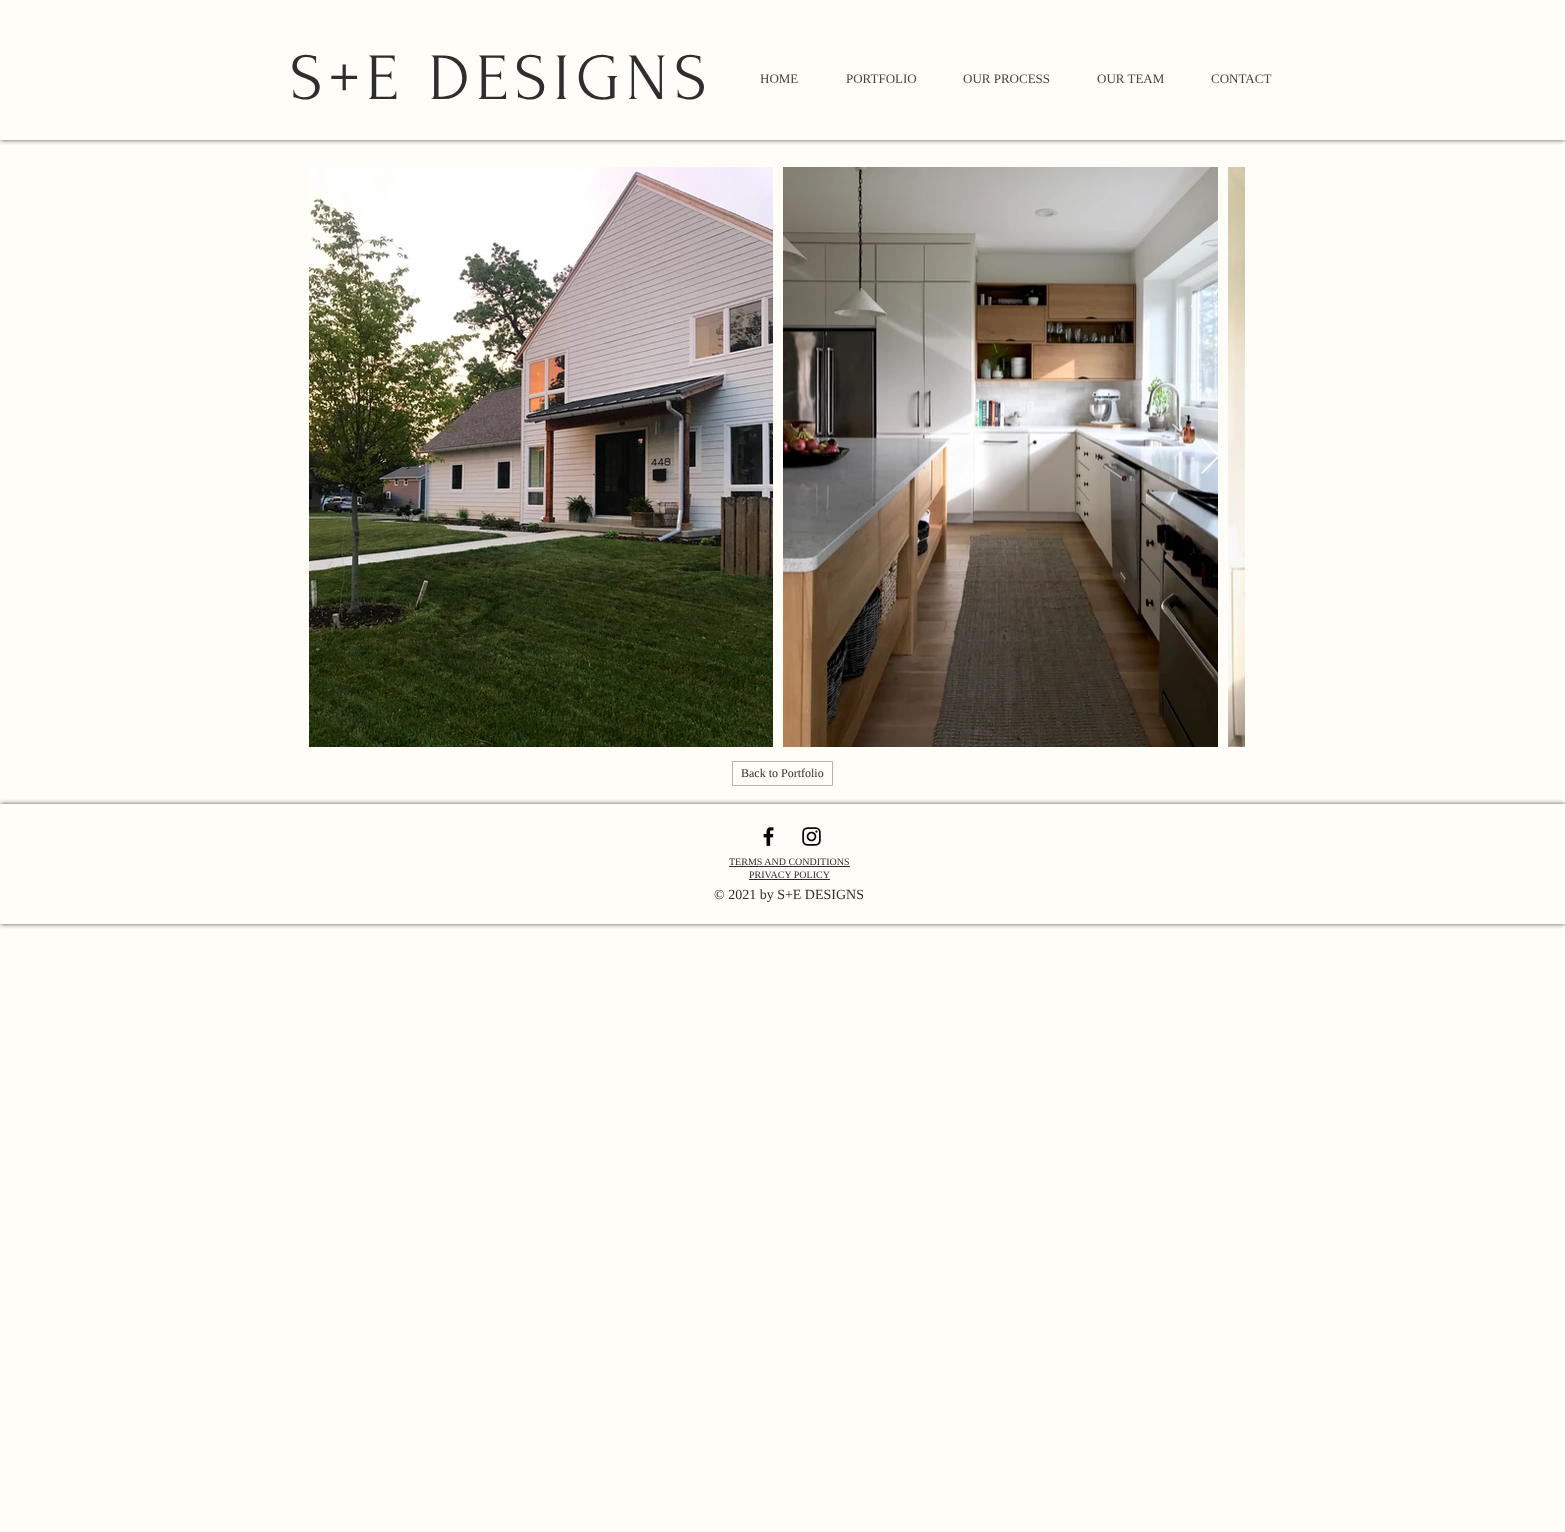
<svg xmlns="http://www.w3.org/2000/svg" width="1565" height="1532">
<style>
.a{font:66px Forum;letter-spacing:6.6px;fill:#2f2e2e}
.b{font:13px Liberation Serif;fill:#444}
.c{font:12px Liberation Serif;fill:#2f2e2e}
.d{font:10px Liberation Serif;fill:#2f2e2e}
.e{font:14px Liberation Serif;fill:#2f2e2e}
</style>
<defs>
<clipPath id="clip1"><path d="M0 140h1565v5H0z"/></clipPath>
<clipPath id="clip2"><path d="M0 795h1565v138h-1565zm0 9h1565v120h-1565z" clip-rule="evenodd"/></clipPath>
</defs>
<rect width="100%" height="100%" fill="#fffdf7"/>
<g clip-path="url(#clip1)">
<path fill="#000000b3" filter="blur(2.5px)" d="M0 0h1565v140H0z"/>
</g>
<image href="1.png" x="309" y="167" width="464" height="580"/>
<image href="2.png" x="783" y="167" width="435" height="580"/>
<image href="3.png" x="1228" y="167" width="17" height="580"/>
<path fill="#fffdf7e6" d="M1201 439.5l1.5-1.5l18 18l-18 18l-1.5-1.5l16.5-16.5z"/>
<path fill="none" stroke="#b4b2af" d="M732.5 761.5h100v24H732.5z"/>
<g clip-path="url(#clip2)">
<path fill="#000000b3" filter="blur(2.5px)" d="M0 804h1565v120H0z"/>
</g>
<image href="4.png" x="763" y="827" width="11" height="20"/>
<image href="5.png" x="802" y="827" width="19" height="19"/>
<path fill="#2f2e2e" d="M729 866h121v1H729z"/>
<path fill="#2f2e2e" d="M749 879h81v1H749z"/>
<text class="a" x="290" y="99">S+E DESIGNS</text>
<text class="b" x="760" y="83">HOME</text>
<text class="b" x="846" y="83">PORTFOLIO</text>
<text class="b" x="963" y="83">OUR PROCESS</text>
<text class="b" x="1097" y="83">OUR TEAM</text>
<text class="b" x="1211" y="83">CONTACT</text>
<text class="c" x="741" y="777">Back to Portfolio</text>
<text class="d" x="729" y="865">TERMS AND CONDITIONS</text>
<text class="d" x="749" y="878">PRIVACY POLICY</text>
<text class="e" x="714" y="899">© 2021 by S+E DESIGNS</text>
</svg>
